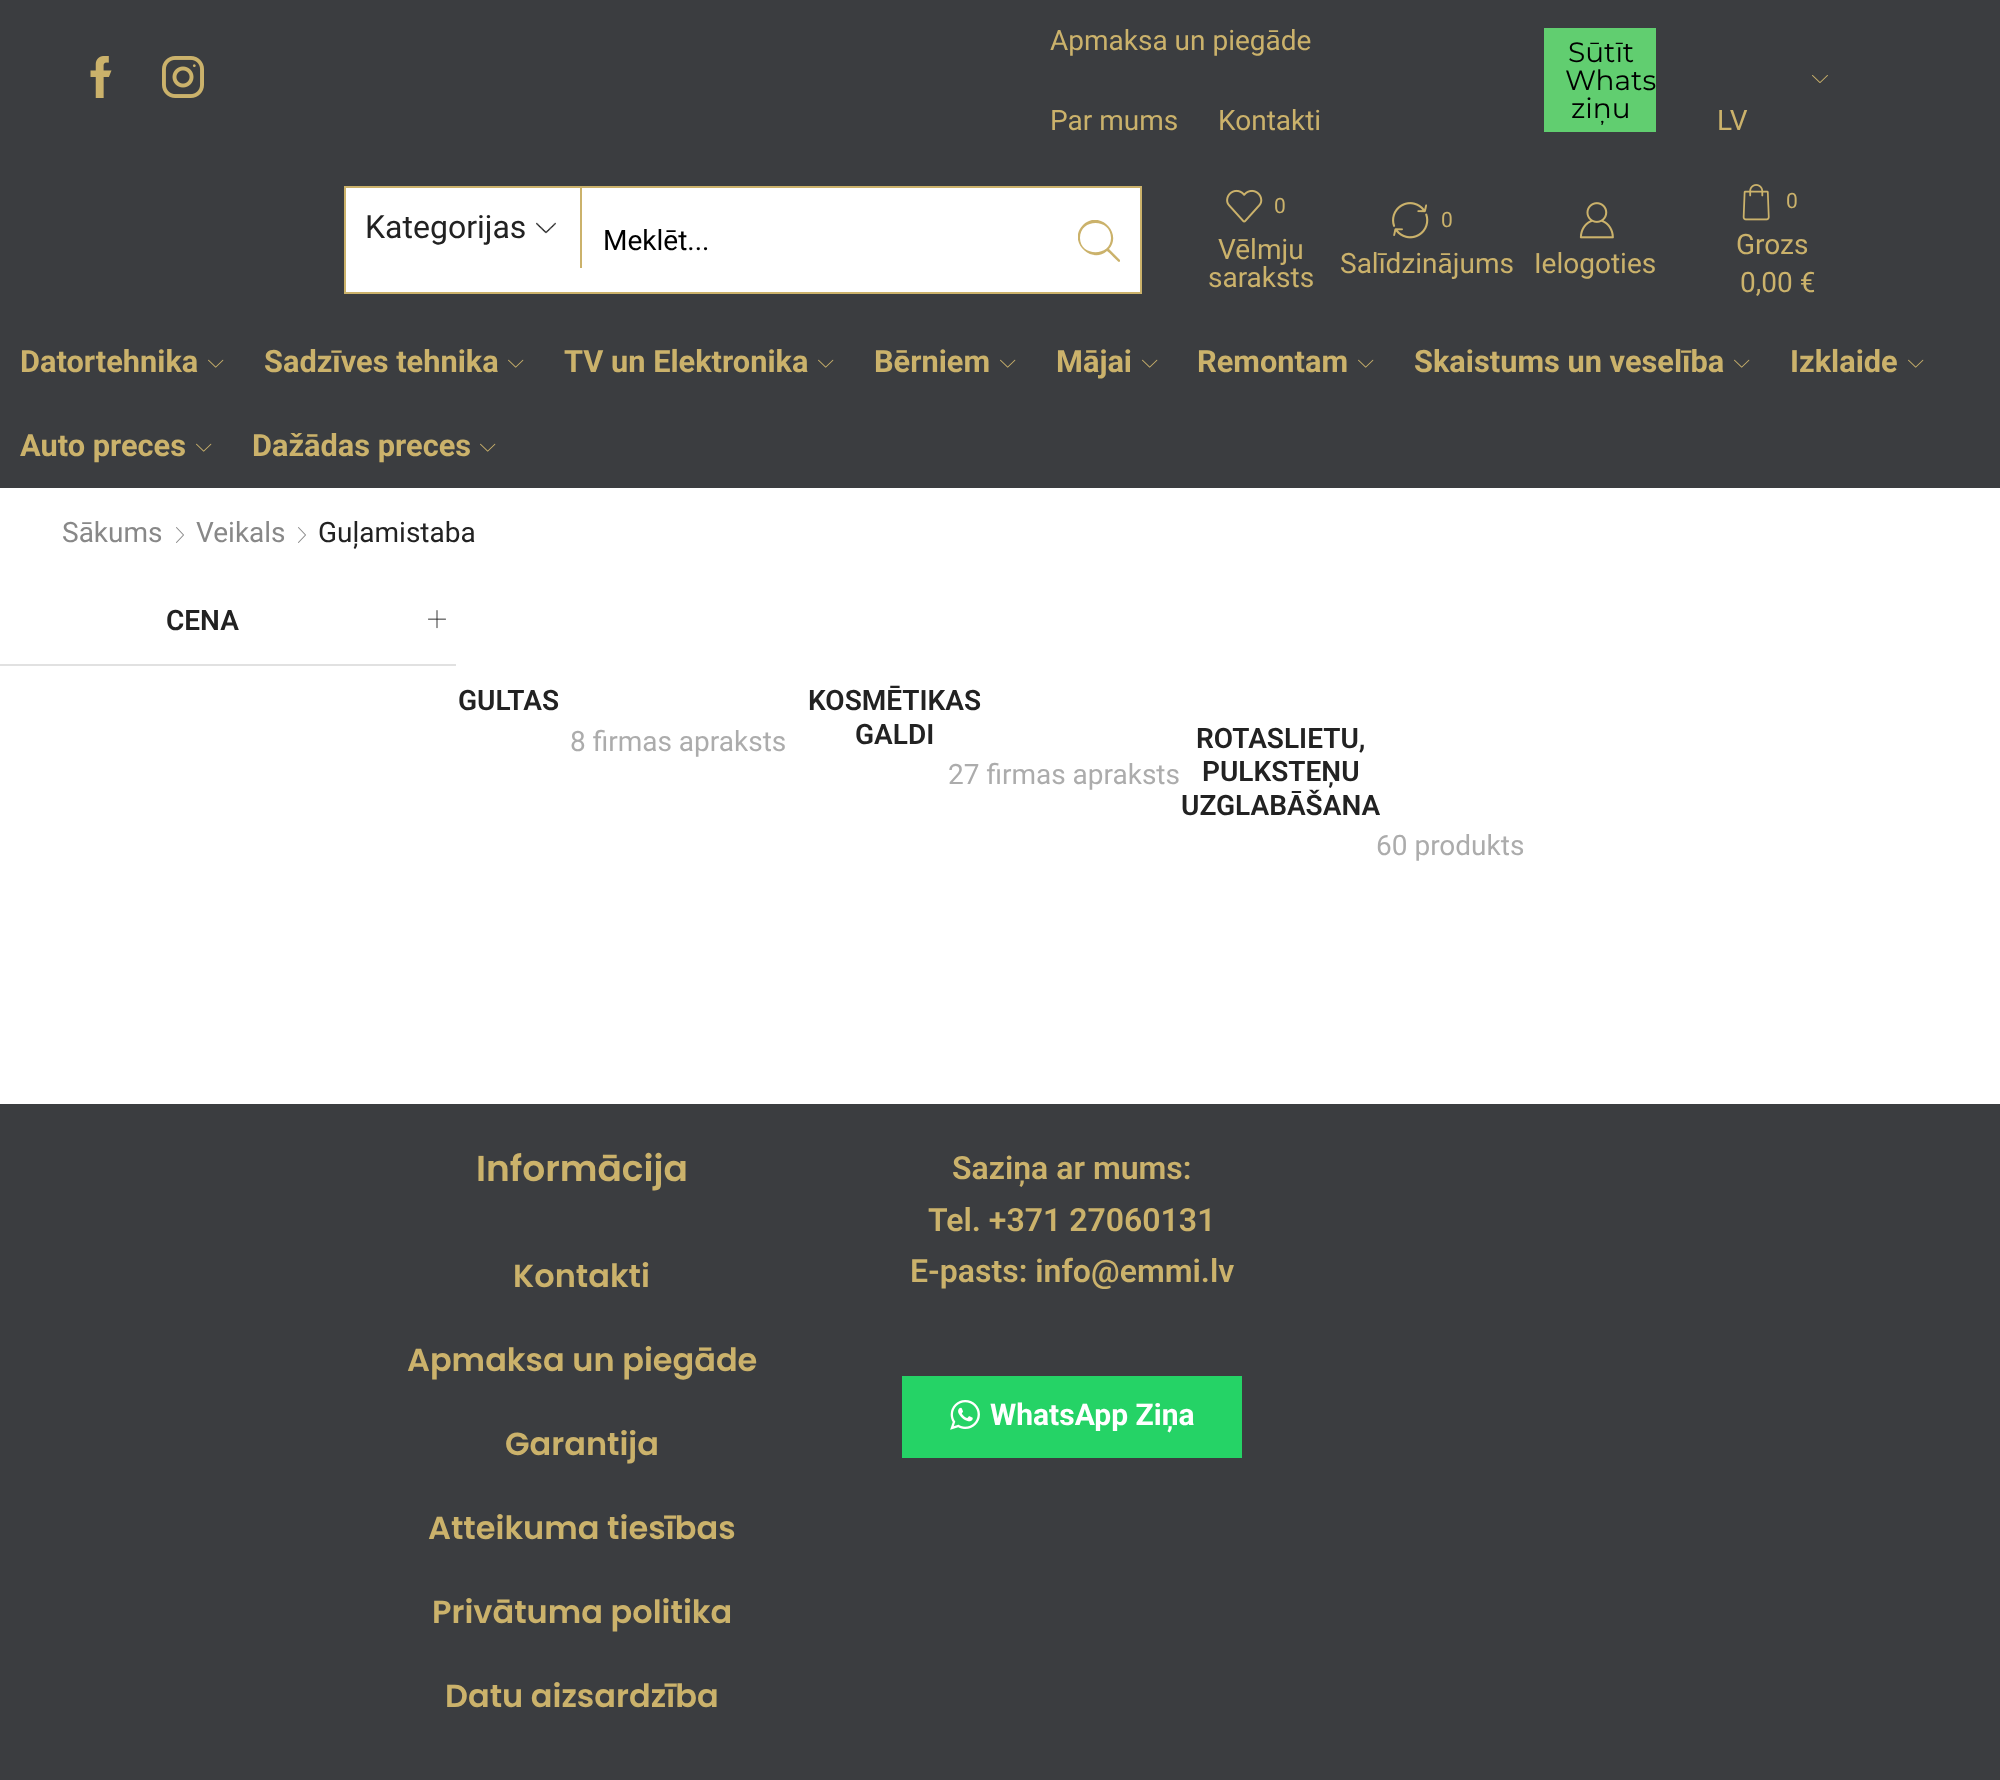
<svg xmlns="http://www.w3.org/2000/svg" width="2000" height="1780">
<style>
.a{font:28px Roboto;fill:#cbb26b}
.b{font:28px Montserrat;fill:#000}
.c{font:32px Roboto;fill:#222}
.d{font:28px Roboto;fill:#000}
.e{font:21px Roboto;fill:#cbb26b}
.f{font:bold 30.75px Roboto;fill:#cbb26b}
.g{font:28px Roboto;fill:#888}
.h{font:28px Roboto;fill:#222}
.i{font:600 28px Roboto;fill:#222}
.j{font:28px Roboto;fill:#acacac}
.k{font:600 36px Poppins;fill:#cbb26b}
.l{font:600 32px Poppins;fill:#cbb26b}
.m{font:600 32px Roboto;fill:#cbb26b}
.n{font:bold 30px Roboto;fill:#fff}
</style>
<defs>
<clipPath id="clip1"><path d="M1078 220h42v42H1078z"/></clipPath>
</defs>
<rect width="100%" height="100%" fill="#fff"/>
<path fill="#3b3d40" d="M0 0h2000v488H0z"/>
<image href="1.png" x="90" y="56" width="22" height="42"/>
<image href="2.png" x="162" y="56" width="42" height="42"/>
<path fill="#61ce70" d="M1544 28h112v104H1544z"/>
<image href="3.png" x="1812" y="75" width="16" height="8"/>
<path fill="#fff" stroke="#cbb26b" stroke-width="2" d="M345 187h796v106H345z"/>
<image href="4.png" x="536" y="222" width="20" height="12"/>
<path fill="#cbb26b" d="M580 188h2v80H580z"/>
<g clip-path="url(#clip1)">
<path fill="#cbb26b" d="M1120 260l-11-11c14-16-10-40-26-24c-16 16 8 40 24 26c2 1 11 11 12 11c1 0 1-1 1-2zm-9-22c0 19-31 19-31 0c0-20 31-20 31 0z"/>
</g>
<image href="5.png" x="1226" y="189" width="37" height="34"/>
<image href="6.png" x="1392" y="202" width="37" height="37"/>
<image href="7.png" x="1579" y="202" width="35" height="37"/>
<image href="8.png" x="1742" y="184" width="28" height="37"/>
<image href="9.png" x="208" y="359" width="16" height="9"/>
<image href="9.png" x="508" y="359" width="16" height="9"/>
<image href="9.png" x="818" y="359" width="16" height="9"/>
<image href="9.png" x="1000" y="359" width="16" height="9"/>
<image href="9.png" x="1142" y="359" width="16" height="9"/>
<image href="9.png" x="1358" y="359" width="16" height="9"/>
<image href="9.png" x="1734" y="359" width="16" height="9"/>
<image href="9.png" x="1908" y="359" width="16" height="9"/>
<image href="9.png" x="196" y="443" width="16" height="9"/>
<image href="9.png" x="480" y="443" width="16" height="9"/>
<image href="10.png" x="176" y="527" width="8" height="16"/>
<image href="10.png" x="298" y="527" width="8" height="16"/>
<path fill="#e1e1e1" d="M0 664h456v2H0z"/>
<image href="11.png" x="428" y="610" width="18" height="19"/>
<path fill="#3b3d40" d="M0 1104h2000v676H0z"/>
<path fill="#25d366" d="M902 1376h340v82H902z"/>
<image href="12.png" x="950" y="1400" width="30" height="30"/>
<text class="a" x="1050" y="50">Apmaksa un piegāde</text>
<text class="a" x="1050" y="130">Par mums</text>
<text class="a" x="1218" y="130">Kontakti</text>
<text class="b" x="1568" y="62">Sūtīt</text>
<text class="b" x="1565" y="90">Whats</text>
<text class="b" x="1571" y="118">ziņu</text>
<text class="a" x="1717" y="130">LV</text>
<text class="c" x="365" y="238">Kategorijas</text>
<text class="d" x="603" y="250">Meklēt...</text>
<text class="e" x="1274" y="213">0</text>
<text class="a" x="1218" y="259">Vēlmju</text>
<text class="a" x="1208" y="287">saraksts</text>
<text class="e" x="1441" y="227">0</text>
<text class="a" x="1340" y="273">Salīdzinājums</text>
<text class="a" x="1534" y="273">Ielogoties</text>
<text class="e" x="1786" y="208">0</text>
<text class="a" x="1736" y="254">Grozs</text>
<text class="a" x="1740" y="292">0,00 €</text>
<text class="f" x="20" y="372">Datortehnika</text>
<text class="f" x="264" y="372">Sadzīves tehnika</text>
<text class="f" x="564" y="372">TV un Elektronika</text>
<text class="f" x="874" y="372">Bērniem</text>
<text class="f" x="1056" y="372">Mājai</text>
<text class="f" x="1197" y="372">Remontam</text>
<text class="f" x="1414" y="372">Skaistums un veselība</text>
<text class="f" x="1790" y="372">Izklaide</text>
<text class="f" x="20" y="456">Auto preces</text>
<text class="f" x="252" y="456">Dažādas preces</text>
<text class="g" x="62" y="542">Sākums</text>
<text class="g" x="196" y="542">Veikals</text>
<text class="h" x="318" y="542">Guļamistaba</text>
<text class="i" x="166" y="630">CENA</text>
<text class="i" x="458" y="710">GULTAS</text>
<text class="j" x="570" y="751">8 firmas apraksts</text>
<text class="i" x="808" y="710">KOSMĒTIKAS</text>
<text class="i" x="855" y="744">GALDI</text>
<text class="j" x="948" y="784">27 firmas apraksts</text>
<text class="i" x="1196" y="748">ROTASLIETU,</text>
<text class="i" x="1202" y="781">PULKSTEŅU</text>
<text class="i" x="1181" y="815">UZGLABĀŠANA</text>
<text class="j" x="1376" y="855">60 produkts</text>
<text class="k" x="476" y="1181">Informācija</text>
<text class="l" x="513" y="1287">Kontakti</text>
<text class="l" x="407" y="1371">Apmaksa un piegāde</text>
<text class="l" x="505" y="1455">Garantija</text>
<text class="l" x="428" y="1539">Atteikuma tiesības</text>
<text class="l" x="432" y="1623">Privātuma politika</text>
<text class="l" x="445" y="1707">Datu aizsardzība</text>
<text class="m" x="952" y="1179">Saziņa ar mums:</text>
<text class="m" x="928" y="1231">Tel. +371 27060131</text>
<text class="m" x="910" y="1282">E-pasts: info@emmi.lv</text>
<text class="n" x="990" y="1425">WhatsApp Ziņa</text>
</svg>
